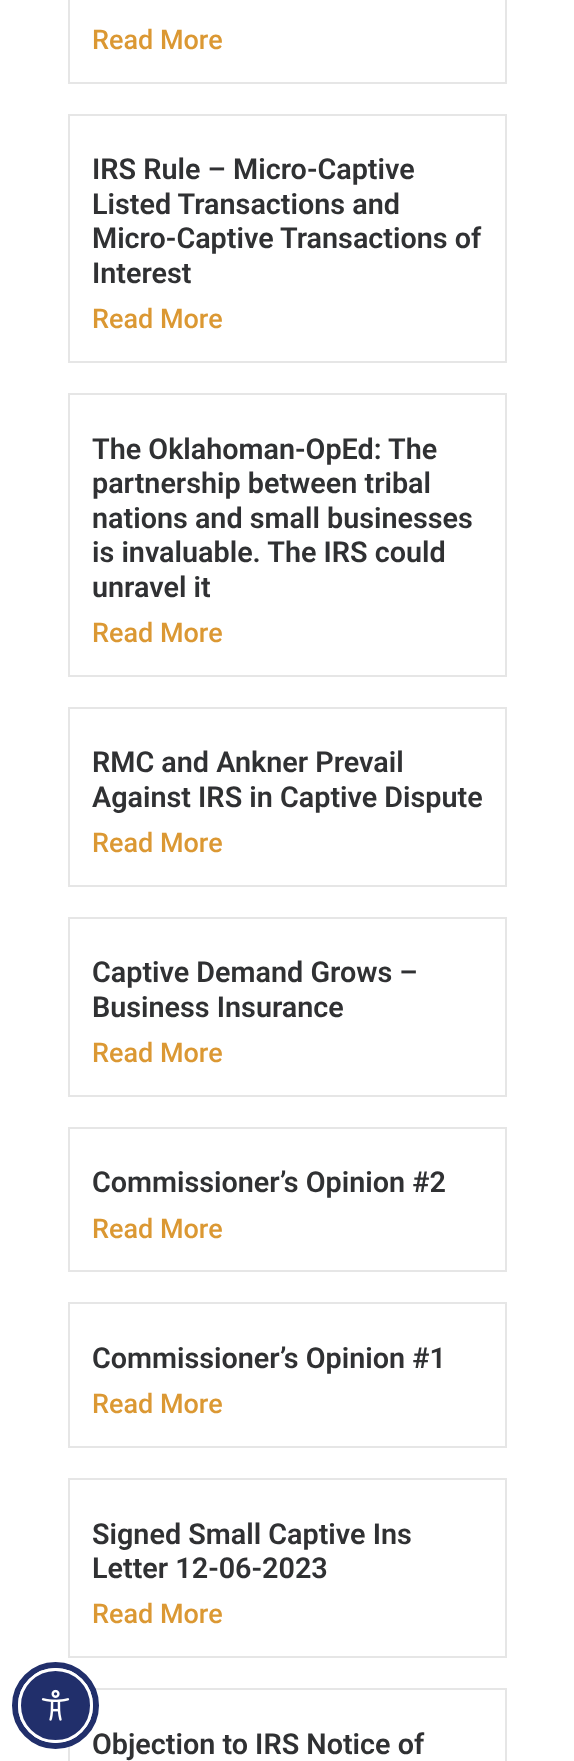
<svg xmlns="http://www.w3.org/2000/svg" width="574" height="1761">
<style>
.a{font:500 27px Roboto;fill:#db9833}
.b{font:600 28.75px Roboto;fill:#303133}
</style>
<rect width="100%" height="100%" fill="#fff"/>
<path fill="none" stroke="#e6e6e6" stroke-width="2" d="M69 -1h437v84H69z"/>
<path fill="none" stroke="#e6e6e6" stroke-width="2" d="M69 115h437v247H69z"/>
<path fill="none" stroke="#e6e6e6" stroke-width="2" d="M69 394h437v282H69z"/>
<path fill="none" stroke="#e6e6e6" stroke-width="2" d="M69 708h437v178H69z"/>
<path fill="none" stroke="#e6e6e6" stroke-width="2" d="M69 918h437v178H69z"/>
<path fill="none" stroke="#e6e6e6" stroke-width="2" d="M69 1128h437v143H69z"/>
<path fill="none" stroke="#e6e6e6" stroke-width="2" d="M69 1303h437v144H69z"/>
<path fill="none" stroke="#e6e6e6" stroke-width="2" d="M69 1479h437v178H69z"/>
<path fill="none" stroke="#e6e6e6" stroke-width="2" d="M69 1689h437v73H69z"/>
<text class="a" x="92" y="49">Read More</text>
<text class="b" x="92" y="179">IRS Rule – Micro-Captive</text>
<text class="b" x="92" y="214">Listed Transactions and</text>
<text class="b" x="92" y="248">Micro-Captive Transactions of</text>
<text class="b" x="92" y="283">Interest</text>
<text class="a" x="92" y="328">Read More</text>
<text class="b" x="92" y="459">The Oklahoman-OpEd: The</text>
<text class="b" x="92" y="493">partnership between tribal</text>
<text class="b" x="92" y="528">nations and small businesses</text>
<text class="b" x="92" y="562">is invaluable. The IRS could</text>
<text class="b" x="92" y="597">unravel it</text>
<text class="a" x="92" y="642">Read More</text>
<text class="b" x="92" y="772">RMC and Ankner Prevail</text>
<text class="b" x="92" y="807">Against IRS in Captive Dispute</text>
<text class="a" x="92" y="852">Read More</text>
<text class="b" x="92" y="982">Captive Demand Grows –</text>
<text class="b" x="92" y="1017">Business Insurance</text>
<text class="a" x="92" y="1062">Read More</text>
<text class="b" x="92" y="1192">Commissioner’s Opinion #2</text>
<text class="a" x="92" y="1238">Read More</text>
<text class="b" x="92" y="1368">Commissioner’s Opinion #1</text>
<text class="a" x="92" y="1413">Read More</text>
<text class="b" x="92" y="1544">Signed Small Captive Ins</text>
<text class="b" x="92" y="1578">Letter 12-06-2023</text>
<text class="a" x="92" y="1623">Read More</text>
<text class="b" x="92" y="1754">Objection to IRS Notice of</text>
<circle fill="none" stroke="#212f6b" stroke-width="6" cx="55.5" cy="1705.5" r="40.5"/>
<circle fill="#212f6b" stroke="#fff" stroke-width="3" cx="55.5" cy="1705.5" r="36"/>
<image href="1.png" x="41" y="1689" width="29" height="32"/>
</svg>
